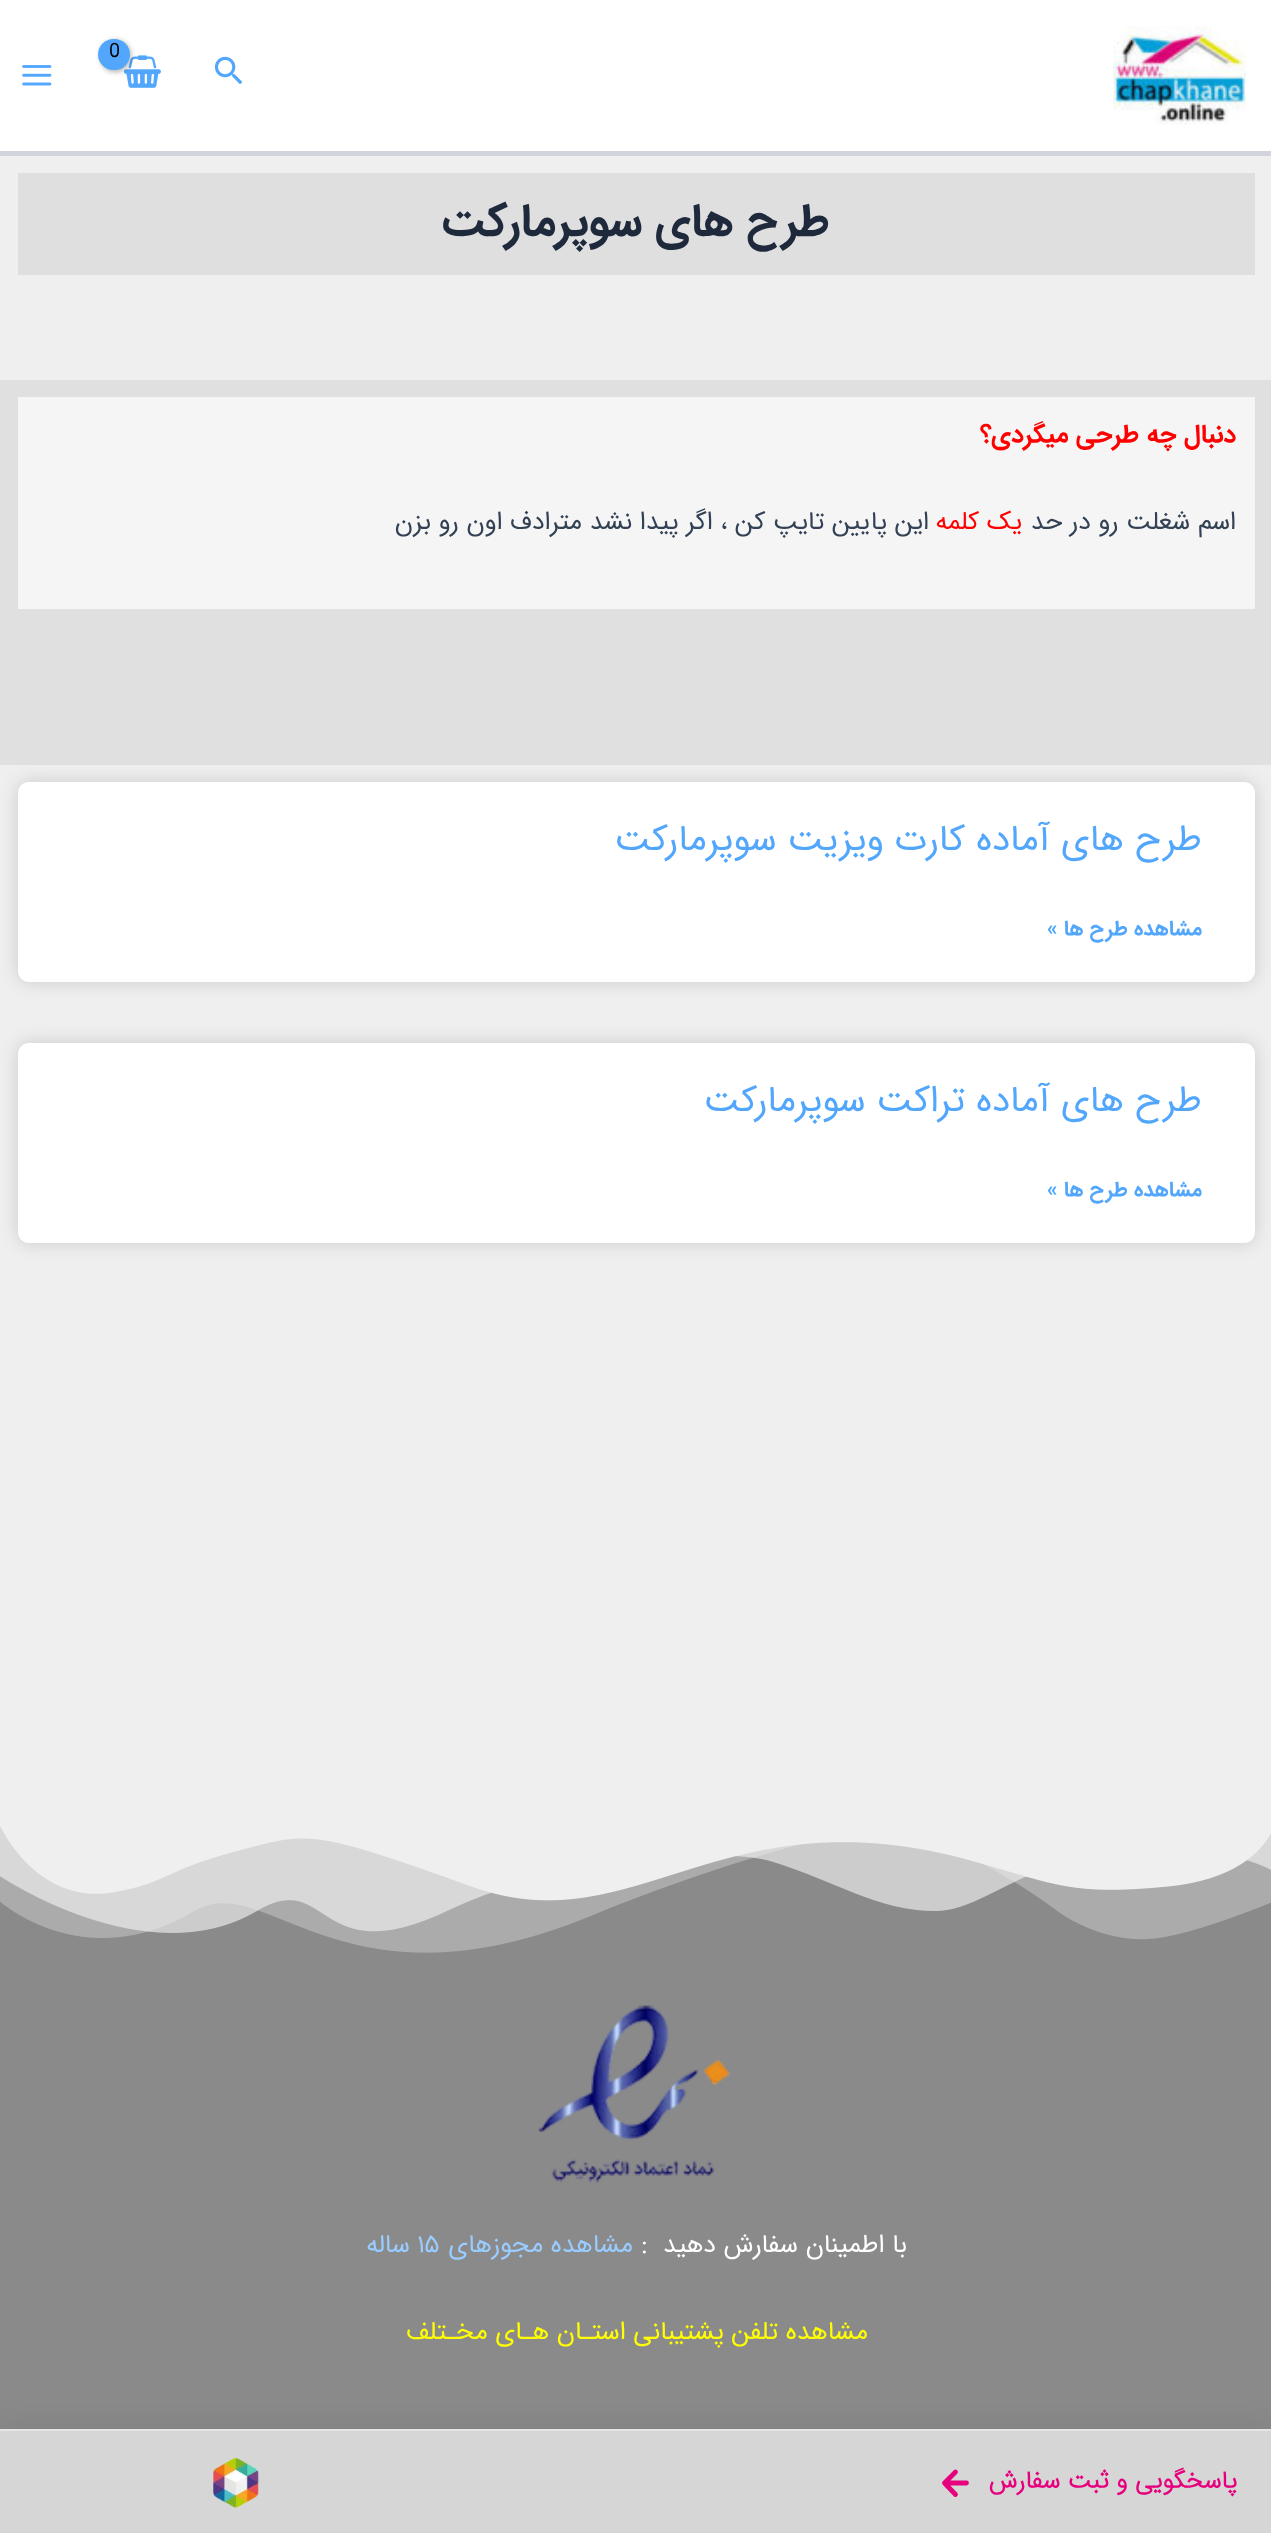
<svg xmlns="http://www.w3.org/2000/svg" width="1271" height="2533">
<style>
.a{font:bold 19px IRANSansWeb;letter-spacing:-1px;fill:#000}
.b{font:bold 45.5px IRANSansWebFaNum;direction:rtl;fill:#1e293b}
.c{font:bold 25.5px IRANSansWebFaNum;direction:rtl;fill:#f00}
.d{font:25.5px IRANSansWebFaNum;direction:rtl;fill:#334155}
.e{font:25.5px IRANSansWebFaNum;direction:rtl;fill:#f00}
.f{font:36.75px IRANSansWebFaNum;direction:rtl;fill:#52a7fc}
.g{font:bold 21px IRANSansWebFaNum;direction:rtl;fill:#52a7fc}
.h{font:25.5px IRANSansWebFaNum;direction:rtl;fill:#fff}
.i{font:25.5px IRANSansWebFaNum;direction:rtl;fill:#9cf}
.j{font:25.5px IRANSansWebFaNum;fill:#9cf}
.k{font:25.5px IRANSansWebFaNum;direction:rtl;fill:#ff0}
.l{font:bold 24.5px IRANSansWeb;direction:rtl;fill:#e6007e}
</style>
<rect width="100%" height="100%" fill="#f0efef"/>
<path fill="#fff" d="M0 0h1271v151H0z"/>
<path fill="#d1d5db" d="M0 151h1271v5H0z"/>
<image href="1.png" x="1113" y="26" width="133" height="99"/>
<image href="2.png" x="123" y="55" width="38" height="33"/>
<rect fill="#0000004d" filter="blur(2.5px)" x="100" y="40" width="31" height="32" rx="15.5"/>
<rect fill="#52a7fc" x="98" y="39" width="32" height="31" rx="15.5"/>
<image href="3.png" x="214" y="56" width="28" height="29"/>
<image href="4.png" x="22" y="65" width="30" height="21"/>
<path fill="#dfdfdf" d="M18 173h1237v102H18z"/>
<path fill="#e0e0e0" d="M0 380h1271v385H0z"/>
<path fill="#f5f5f5" d="M18 397h1237v212H18z"/>
<rect fill="#00000026" filter="blur(9px)" x="18" y="782" width="1237" height="200" rx="11"/>
<rect fill="#fff" x="18" y="782" width="1237" height="200" rx="11"/>
<rect fill="#00000026" filter="blur(9px)" x="18" y="1043" width="1237" height="200" rx="11"/>
<rect fill="#fff" x="18" y="1043" width="1237" height="200" rx="11"/>
<path fill="#8a8a8a" d="M0 1827h1271v602H0z"/>
<image href="5.png" x="0" y="1827" width="1271" height="126"/>
<image href="6.png" x="538" y="2005" width="193" height="178"/>
<path fill="#0000000d" filter="blur(13px)" d="M0 2420h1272v105H0z"/>
<path fill="#d6d6d6" d="M0 2431h1271v102H0z"/>
<path fill="#e6e6e6" d="M0 2429h1271v2H0z"/>
<path fill="none" stroke="#e6007e" stroke-width="4.8" stroke-linecap="round" stroke-linejoin="round" d="M966.5 2483h-22m11 11.5l-11-11.5l11-11"/>
<image href="7.png" x="213" y="2458" width="46" height="50"/>
<text class="a" x="109" y="57">0</text>
<text class="b" x="830" y="235">طرح های سوپرمارکت</text>
<text class="c" x="1236" y="442">دنبال چه طرحی میگردی؟</text>
<text class="d" x="1236" y="529">اسم شغلت رو در حد</text>
<text class="e" x="1022" y="529">یک کلمه</text>
<text class="d" x="929" y="529">این پایین تایپ کن ، اگر پیدا نشد مترادف اون رو بزن</text>
<text class="f" x="1202" y="850">طرح های آماده کارت ویزیت سوپرمارکت</text>
<text class="g" x="1202" y="935">مشاهده طرح ها »</text>
<text class="f" x="1202" y="1111">طرح های آماده تراکت سوپرمارکت</text>
<text class="g" x="1202" y="1196">مشاهده طرح ها »</text>
<text class="h" xml:space="preserve" x="907" y="2252">با اطمینان سفارش دهید  :</text>
<text class="i" x="633" y="2252">مشاهده مجوزهای</text>
<text class="j" x="417" y="2252">15</text>
<text class="i" x="410" y="2252">ساله</text>
<text class="k" x="868" y="2339">مشاهده تلفن پشتیبانی استـان هـای مخـتلف</text>
<text class="l" x="1237" y="2488">پاسخگویی و ثبت سفارش</text>
</svg>
